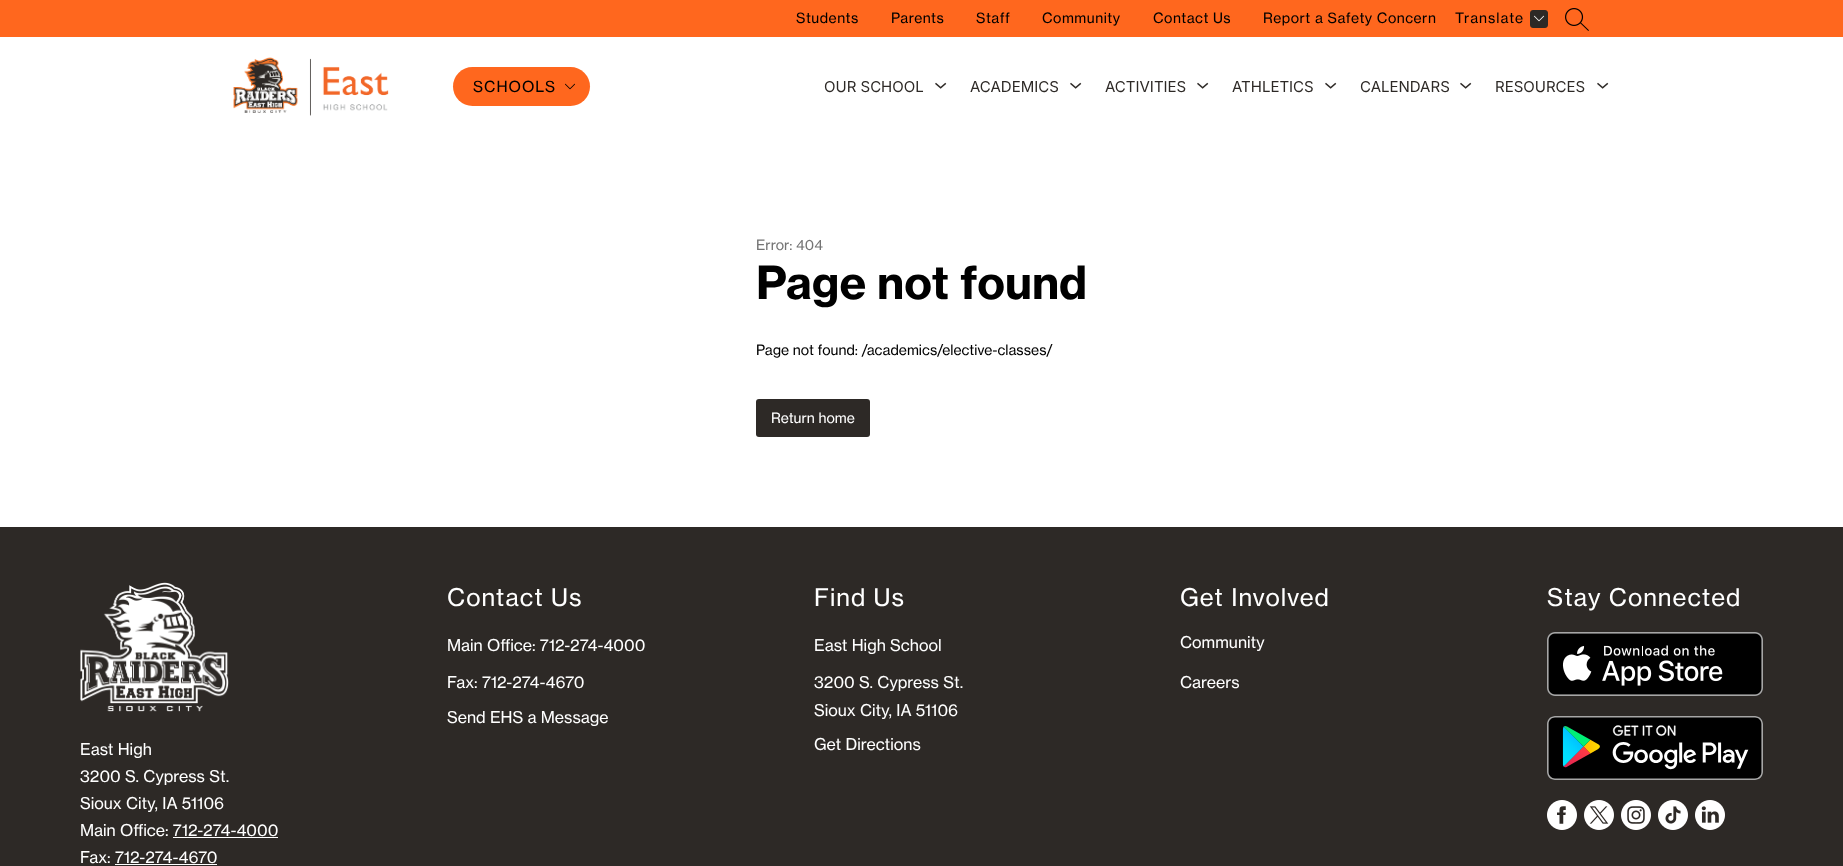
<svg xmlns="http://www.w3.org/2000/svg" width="1843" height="866">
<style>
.a{font:14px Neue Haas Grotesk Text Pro;letter-spacing:1px;fill:#000}
.b{font:15px Neue Haas Grotesk Text Pro;letter-spacing:1px;fill:#000}
.c{font:14px Neue Haas Grotesk Text Pro;letter-spacing:0.5px;fill:#000}
.d{font:15px Inter;fill:#2d2926}
.e{font:14px Neue Haas Grotesk Text Pro;fill:#747474}
.f{font:bold 45px Neue Haas Grotesk Text Pro;fill:#000}
.g{font:14px Neue Haas Grotesk Text Pro;fill:#000}
.h{font:14px Neue Haas Grotesk Text Pro;fill:#fff}
.i{font:24px Neue Haas Grotesk Text Pro;letter-spacing:1px;fill:#fff}
.j{font:16px Neue Haas Grotesk Text Pro;fill:#fff}
</style>
<rect width="100%" height="100%" fill="#fff"/>
<image href="1.png" x="233" y="57" width="156" height="59"/>
<path fill="#ff671e" d="M0 0h1843v37H0z"/>
<image href="2.png" x="1530" y="10" width="18" height="18"/>
<rect fill="#ff671e" x="453" y="67" width="137" height="39" rx="19.5"/>
<image href="3.png" x="565" y="83" width="10" height="7"/>
<image href="4.png" x="1565" y="8" width="24" height="23"/>
<image href="5.png" x="935" y="82" width="12" height="7"/>
<image href="5.png" x="1070" y="82" width="12" height="7"/>
<image href="5.png" x="1197" y="82" width="12" height="7"/>
<image href="5.png" x="1325" y="82" width="12" height="7"/>
<image href="5.png" x="1460" y="82" width="12" height="7"/>
<image href="5.png" x="1597" y="82" width="12" height="7"/>
<rect fill="#2d2926" x="756" y="399" width="114" height="38" rx="3"/>
<path fill="#2d2926" d="M0 527h1843v339H0z"/>
<image href="6.png" x="1547" y="632" width="216" height="64"/>
<image href="7.png" x="1547" y="716" width="216" height="64"/>
<image href="8.png" x="1547" y="800" width="30" height="30"/>
<image href="9.png" x="1584" y="800" width="30" height="30"/>
<image href="10.png" x="1621" y="800" width="30" height="30"/>
<image href="11.png" x="1658" y="800" width="30" height="30"/>
<image href="12.png" x="1695" y="800" width="30" height="30"/>
<image href="13.png" x="80" y="582" width="149" height="130"/>
<path fill="#fff" d="M173 837h105v1H173z"/>
<path fill="#fff" d="M115 864h102v1H115z"/>
<text class="a" x="1455" y="23">Translate</text>
<text class="b" x="473" y="92">SCHOOLS</text>
<text class="c" x="796" y="23">Students</text>
<text class="c" x="891" y="23">Parents</text>
<text class="c" x="976" y="23">Staff</text>
<text class="c" x="1042" y="23">Community</text>
<text class="c" x="1153" y="23">Contact Us</text>
<text class="c" x="1263" y="23">Report a Safety Concern</text>
<text class="d" x="824" y="92">OUR SCHOOL</text>
<text class="d" x="970" y="92">ACADEMICS</text>
<text class="d" x="1105" y="92">ACTIVITIES</text>
<text class="d" x="1232" y="92">ATHLETICS</text>
<text class="d" x="1360" y="92">CALENDARS</text>
<text class="d" x="1495" y="92">RESOURCES</text>
<text class="e" x="756" y="250">Error: 404</text>
<text class="f" x="756" y="299">Page not found</text>
<text class="g" x="756" y="355">Page not found: /academics/elective-classes/</text>
<text class="h" x="771" y="423">Return home</text>
<text class="i" x="447" y="606">Contact Us</text>
<text class="j" x="447" y="651">Main Office: 712-274-4000</text>
<text class="j" x="447" y="688">Fax: 712-274-4670</text>
<text class="j" x="447" y="723">Send EHS a Message</text>
<text class="i" x="814" y="606">Find Us</text>
<text class="j" x="814" y="651">East High School</text>
<text class="j" x="814" y="688">3200 S. Cypress St.</text>
<text class="j" x="814" y="716">Sioux City, IA 51106</text>
<text class="j" x="814" y="750">Get Directions</text>
<text class="i" x="1180" y="606">Get Involved</text>
<text class="j" x="1180" y="648">Community</text>
<text class="j" x="1180" y="688">Careers</text>
<text class="i" x="1547" y="606">Stay Connected</text>
<text class="j" x="80" y="755">East High</text>
<text class="j" x="80" y="782">3200 S. Cypress St.</text>
<text class="j" x="80" y="809">Sioux City, IA 51106</text>
<text class="j" x="80" y="836">Main Office: 712-274-4000</text>
<text class="j" x="80" y="863">Fax: 712-274-4670</text>
</svg>
